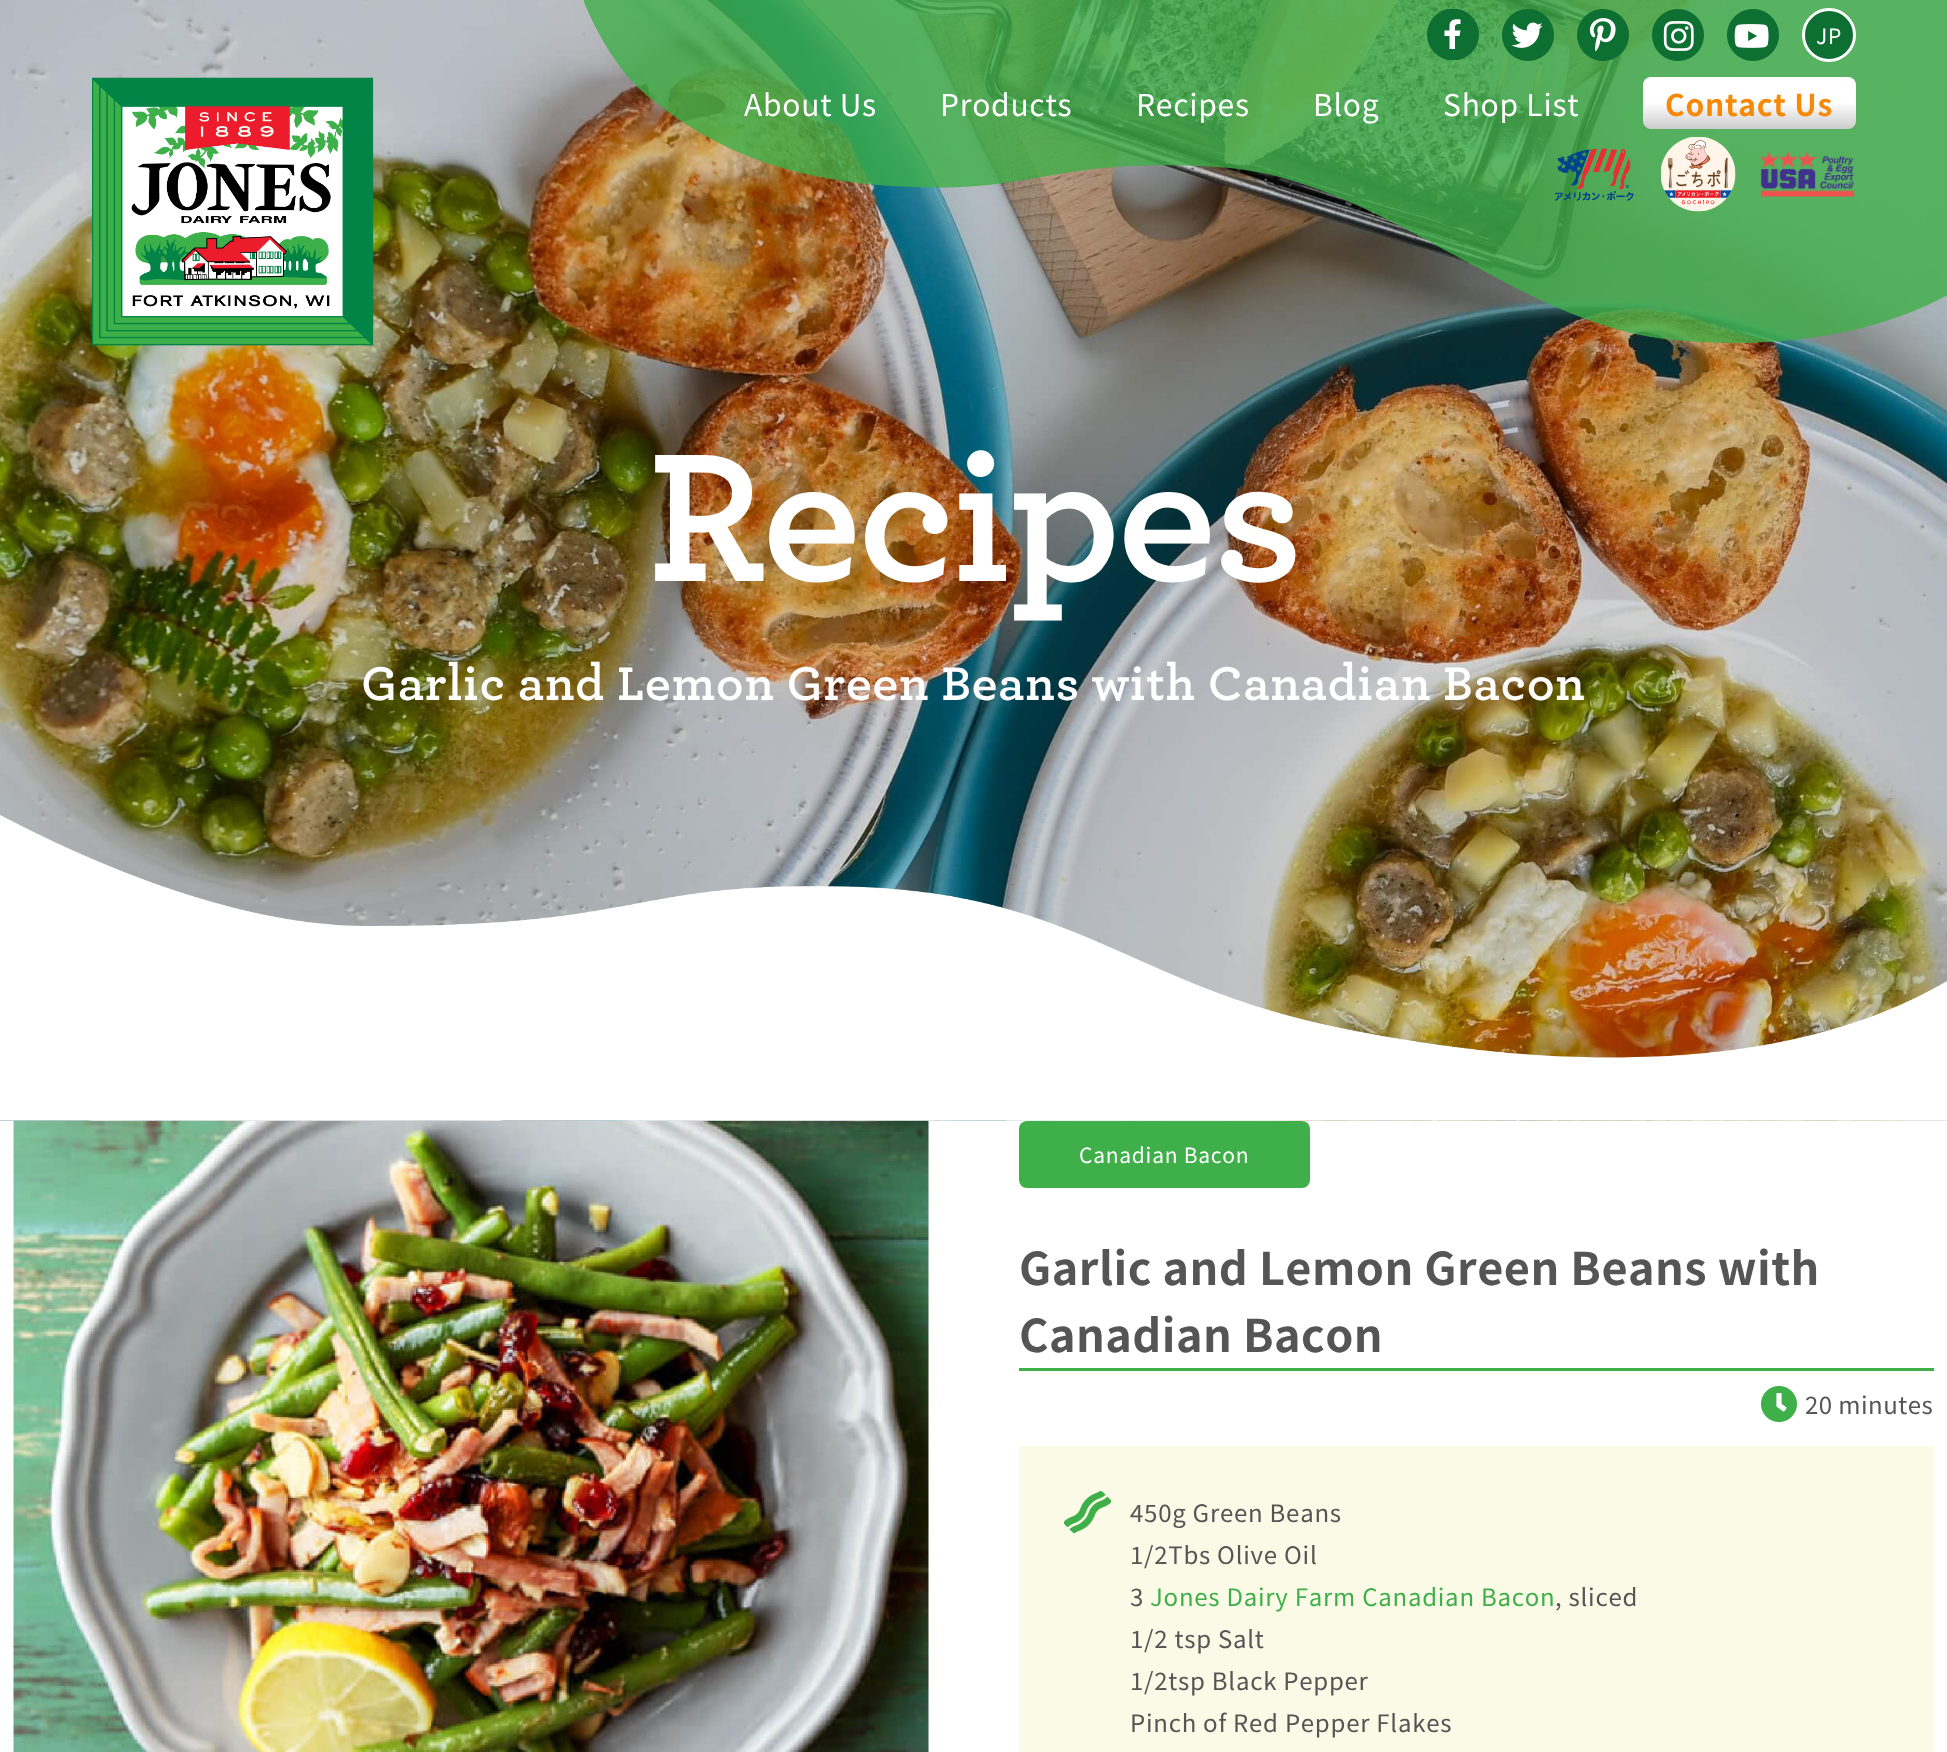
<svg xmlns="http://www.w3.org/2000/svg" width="1947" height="1752">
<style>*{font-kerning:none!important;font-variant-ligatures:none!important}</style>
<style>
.a{font:21px Noto Sans JP;letter-spacing:0.75px;fill:#fff}
.b{font:30px Noto Sans JP;letter-spacing:0.75px;fill:#fff}
.c{font:bold 30px Noto Sans JP;letter-spacing:0.75px;fill:#f88906}
.d{font:bold 174px 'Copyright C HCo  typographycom';letter-spacing:-5.25px;fill:#fff}
.e{font:bold 45px 'Copyright C HCo  typographycom';letter-spacing:0.45px;fill:#fff}
.f{font:bold 45px Noto Sans JP;letter-spacing:0.45px;fill:#555}
.g{font:24px Noto Sans JP;letter-spacing:0.45px;fill:#555}
.h{font:24px Noto Sans JP;letter-spacing:0.75px;fill:#555}
.i{font:24px Noto Sans JP;letter-spacing:0.75px;fill:#3faf49}
</style>
<defs>
<clipPath id="clip1"><path d="M1427 9h52v51H1427z"/></clipPath>
<linearGradient id="g1" gradientUnits="userSpaceOnUse" x1="1749" y1="76" x2="1749" y2="129"><stop offset="0" stop-color="#fff"/><stop offset="0.5" stop-color="#fff"/><stop offset="1" stop-color="#ccc"/></linearGradient>
</defs>
<rect width="100%" height="100%" fill="#fff"/>
<image href="12.png" x="13" y="1120" width="916" height="632"/>
<image href="10.png" x="0" y="0" width="1947" height="1121"/>
<image href="1.png" x="584" y="0" width="1363" height="343"/>
<g clip-path="url(#clip1)">
<circle fill="#0d6f31" cx="1453" cy="34.5" r="26"/>
</g>
<path fill="#fff" d="M1459.5 36l1-5.5h-5.5c0-5.5-.5-6.5 5.5-6.5v-4.5c-4.5-.5-10-.5-11 5.5v5.5h-5v5.5h5v13h5.5v-13z"/>
<image href="2.png" x="1502" y="9" width="52" height="52"/>
<image href="3.png" x="1577" y="9" width="52" height="52"/>
<image href="4.png" x="1652" y="9" width="52" height="52"/>
<image href="5.png" x="1727" y="9" width="52" height="52"/>
<circle fill="#0d6f31" stroke="#fff" stroke-width="3" cx="1829" cy="35" r="25.5"/>
<image href="6.png" x="92" y="77" width="282" height="269"/>
<rect fill="url(#g1)" x="1643" y="77" width="213" height="52" rx="8"/>
<image href="7.png" x="1555" y="148" width="79" height="53"/>
<image href="8.png" x="1661" y="137" width="75" height="75"/>
<image href="9.png" x="1760" y="151" width="95" height="46"/>
<image href="11.png" x="0" y="815" width="1947" height="306"/>
<rect fill="#3faf49" x="1019" y="1121" width="291" height="67" rx="8"/>
<path fill="#3faf49" d="M1019 1368h915v3H1019z"/>
<image href="13.png" x="1761" y="1386" width="36" height="36"/>
<path fill="#fafae7" d="M1019 1446h915v306H1019z"/>
<image href="14.png" x="1064" y="1491" width="48" height="42"/>
<text class="a" x="1816" y="44">JP</text>
<text class="b" x="744" y="116">About Us</text>
<text class="b" x="940" y="116">Products</text>
<text class="b" x="1136" y="116">Recipes</text>
<text class="b" x="1313" y="116">Blog</text>
<text class="b" x="1443" y="116">Shop List</text>
<text class="c" x="1665" y="116">Contact Us</text>
<text class="d" x="647" y="581">Recipes</text>
<text class="e" x="361" y="700">Garlic and Lemon Green Beans with Canadian Bacon</text>
<text class="a" x="1079" y="1163">Canadian Bacon</text>
<text class="f" x="1019" y="1285">Garlic and Lemon Green Beans with</text>
<text class="f" x="1019" y="1352">Canadian Bacon</text>
<text class="g" x="1805" y="1414">20 minutes</text>
<text class="h" x="1130" y="1522">450g Green Beans</text>
<text class="h" x="1130" y="1564">1/2Tbs Olive Oil</text>
<text class="h" x="1130" y="1606">3</text>
<text class="i" x="1150" y="1606">Jones Dairy Farm Canadian Bacon</text>
<text class="h" x="1555" y="1606">, sliced</text>
<text class="h" x="1130" y="1648">1/2 tsp Salt</text>
<text class="h" x="1130" y="1690">1/2tsp Black Pepper</text>
<text class="h" x="1130" y="1732">Pinch of Red Pepper Flakes</text>
</svg>
